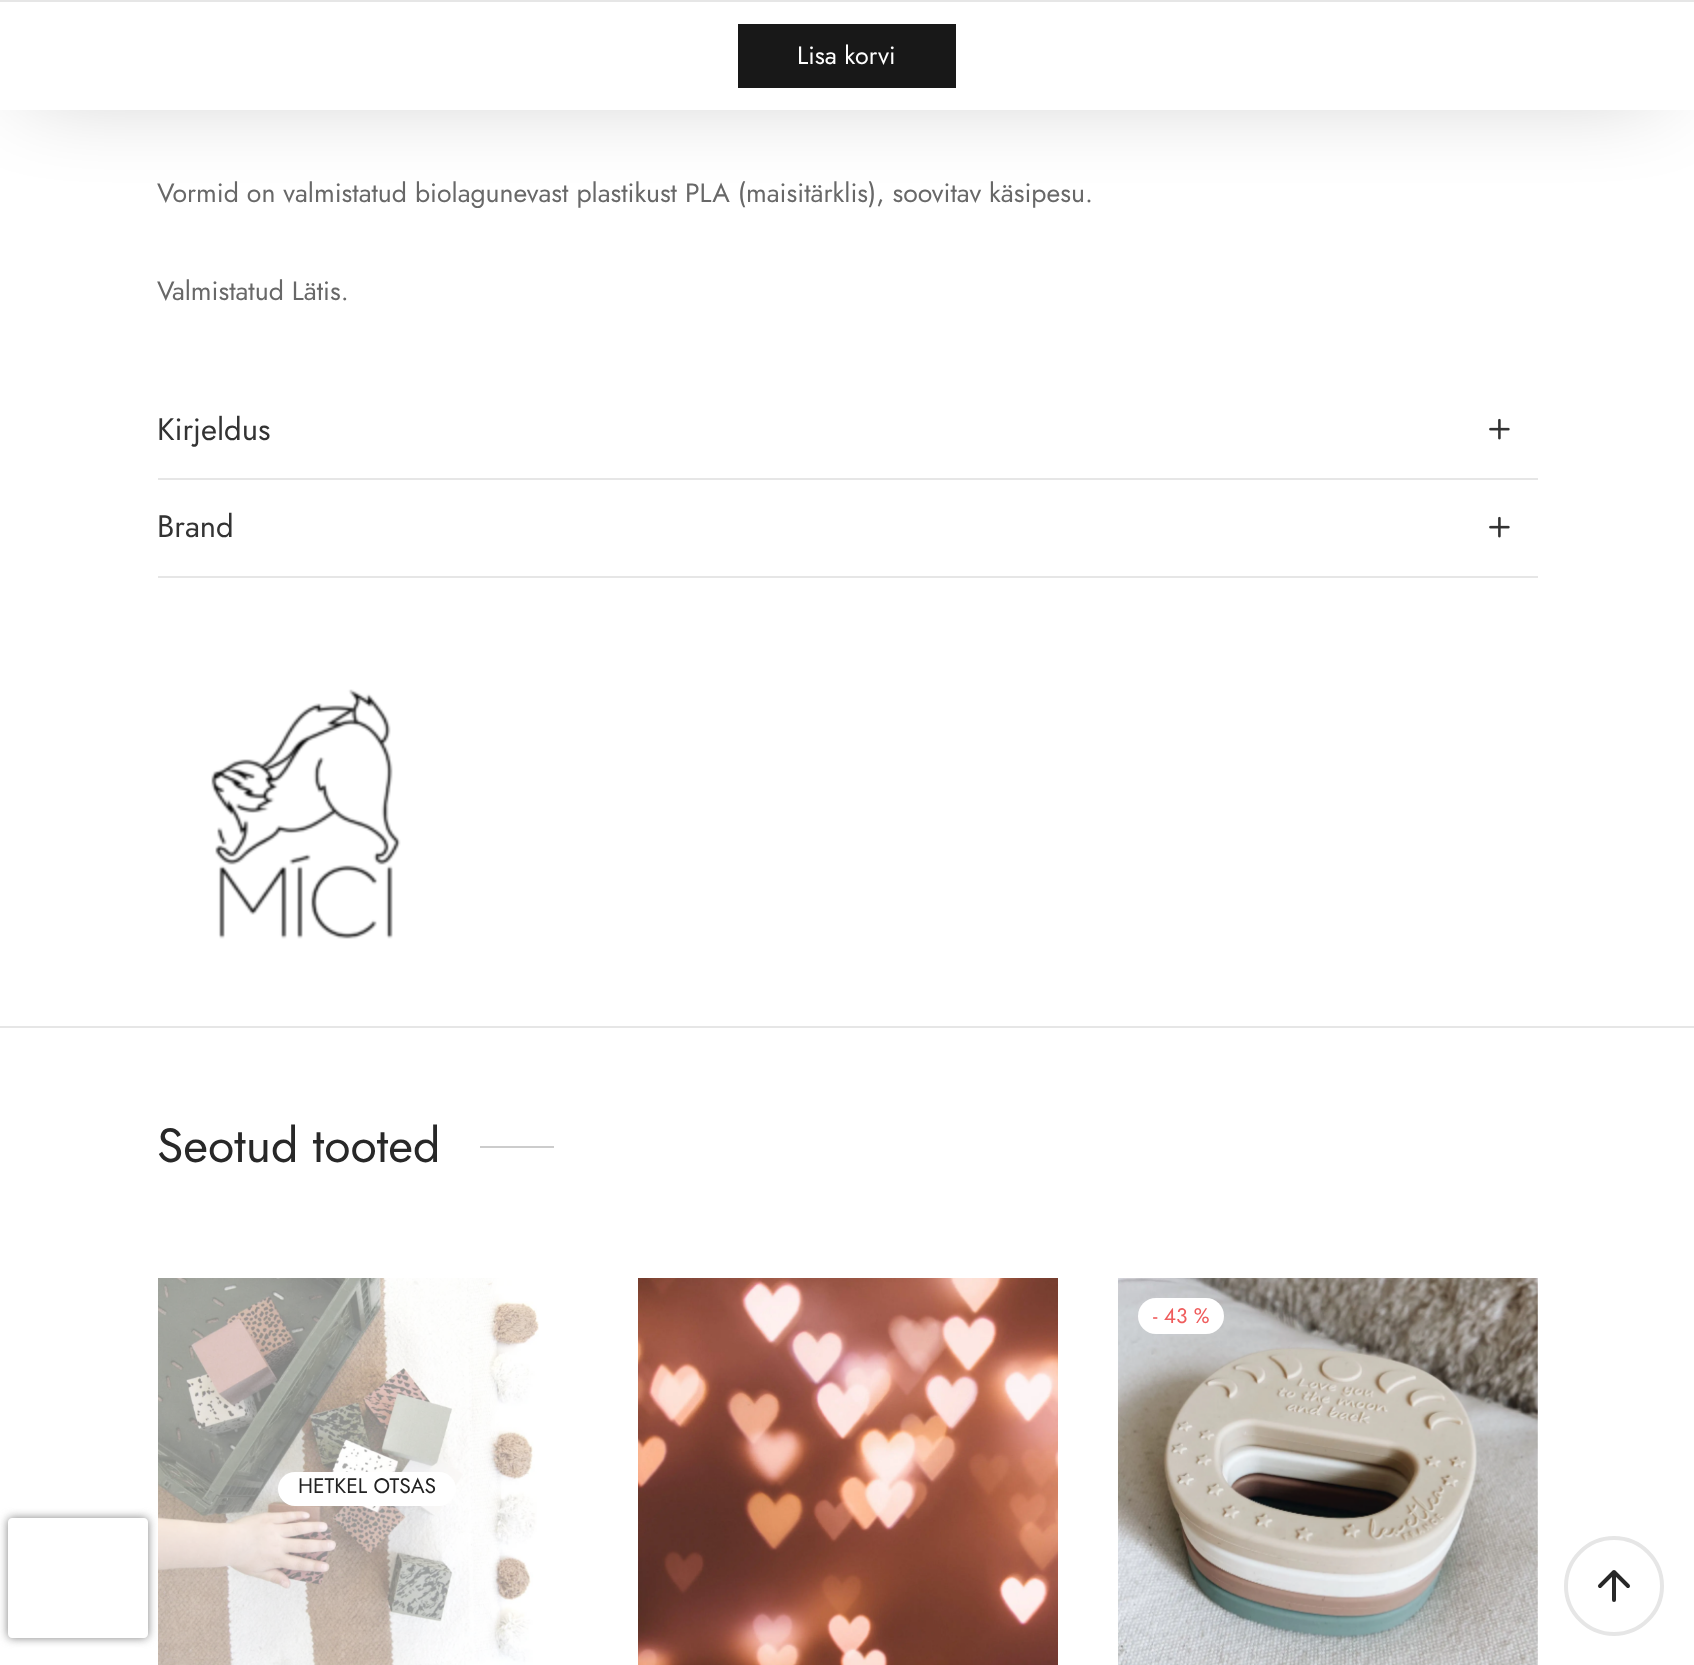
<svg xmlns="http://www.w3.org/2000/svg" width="1694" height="1665">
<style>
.a{font:25px Jost;fill:#fff}
.b{font:26.6px Jost;fill:#686868}
.c{font:31px Jost;fill:#333}
.d{font:48px Jost;fill:#282828}
.e{font:21px Jost;fill:#ef5c5c}
.f{font:21px Jost;fill:#222}
</style>
<defs>
<clipPath id="clip1"><path d="M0 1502h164v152h-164zm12 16h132c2 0 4 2 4 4v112c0 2-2 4-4 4h-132c-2 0-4-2-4-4v-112c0-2 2-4 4-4z" clip-rule="evenodd"/></clipPath>
</defs>
<rect width="100%" height="100%" fill="#fff"/>
<path fill="#0000004d" filter="blur(45px)" d="M26 34h1634v50H26z"/>
<path fill="#fff" d="M0 2h1694v108H0z"/>
<path fill="#e6e6e6" d="M0 0h1694v2H0z"/>
<path fill="#181818" d="M738 24h218v64H738z"/>
<path fill="#e6e6e6" d="M0 1026h1694v2H0z"/>
<image href="1.png" x="1489" y="418" width="21" height="22"/>
<path fill="#e6e6e6" d="M158 478h1380v2H158z"/>
<image href="1.png" x="1489" y="516" width="21" height="22"/>
<path fill="#e6e6e6" d="M158 576h1380v2H158z"/>
<image href="2.png" x="211" y="689" width="190" height="250"/>
<path fill="#ccc" d="M480 1146h74v2H480z"/>
<image href="3.png" x="638" y="1278" width="420" height="387"/>
<image href="4.png" x="1118" y="1278" width="420" height="387"/>
<rect fill="#fff" x="1138" y="1298" width="86" height="36" rx="18"/>
<image href="5.png" x="158" y="1278" width="381" height="387"/>
<rect fill="#fff" x="278" y="1472" width="178" height="34" rx="17"/>
<g clip-path="url(#clip1)">
<rect fill="#808080" filter="blur(5px)" x="8" y="1518" width="140" height="120" rx="4"/>
</g>
<path fill="none" stroke="#e6e6e6" stroke-width="4" d="M1566 1586c0-26.5 21.5-48 48-48c26.5 0 48 21.5 48 48c0 26.5-21.5 48-48 48c-26.5 0-48-21.5-48-48z"/>
<path fill="none" stroke="#282828" stroke-width="4" stroke-linecap="round" stroke-linejoin="round" d="M1614 1600v-28m-14 14l14-14l14 14"/>
<text class="a" x="797" y="64">Lisa korvi</text>
<text class="b" x="157" y="202">Vormid on valmistatud biolagunevast plastikust PLA (maisitärklis), soovitav käsipesu.</text>
<text class="b" x="157" y="300">Valmistatud Lätis.</text>
<text class="c" x="157" y="440">Kirjeldus</text>
<text class="c" x="157" y="537">Brand</text>
<text class="d" x="157" y="1162">Seotud tooted</text>
<text class="e" x="1153" y="1323">- 43 %</text>
<text class="f" x="298" y="1493">HETKEL OTSAS</text>
</svg>
